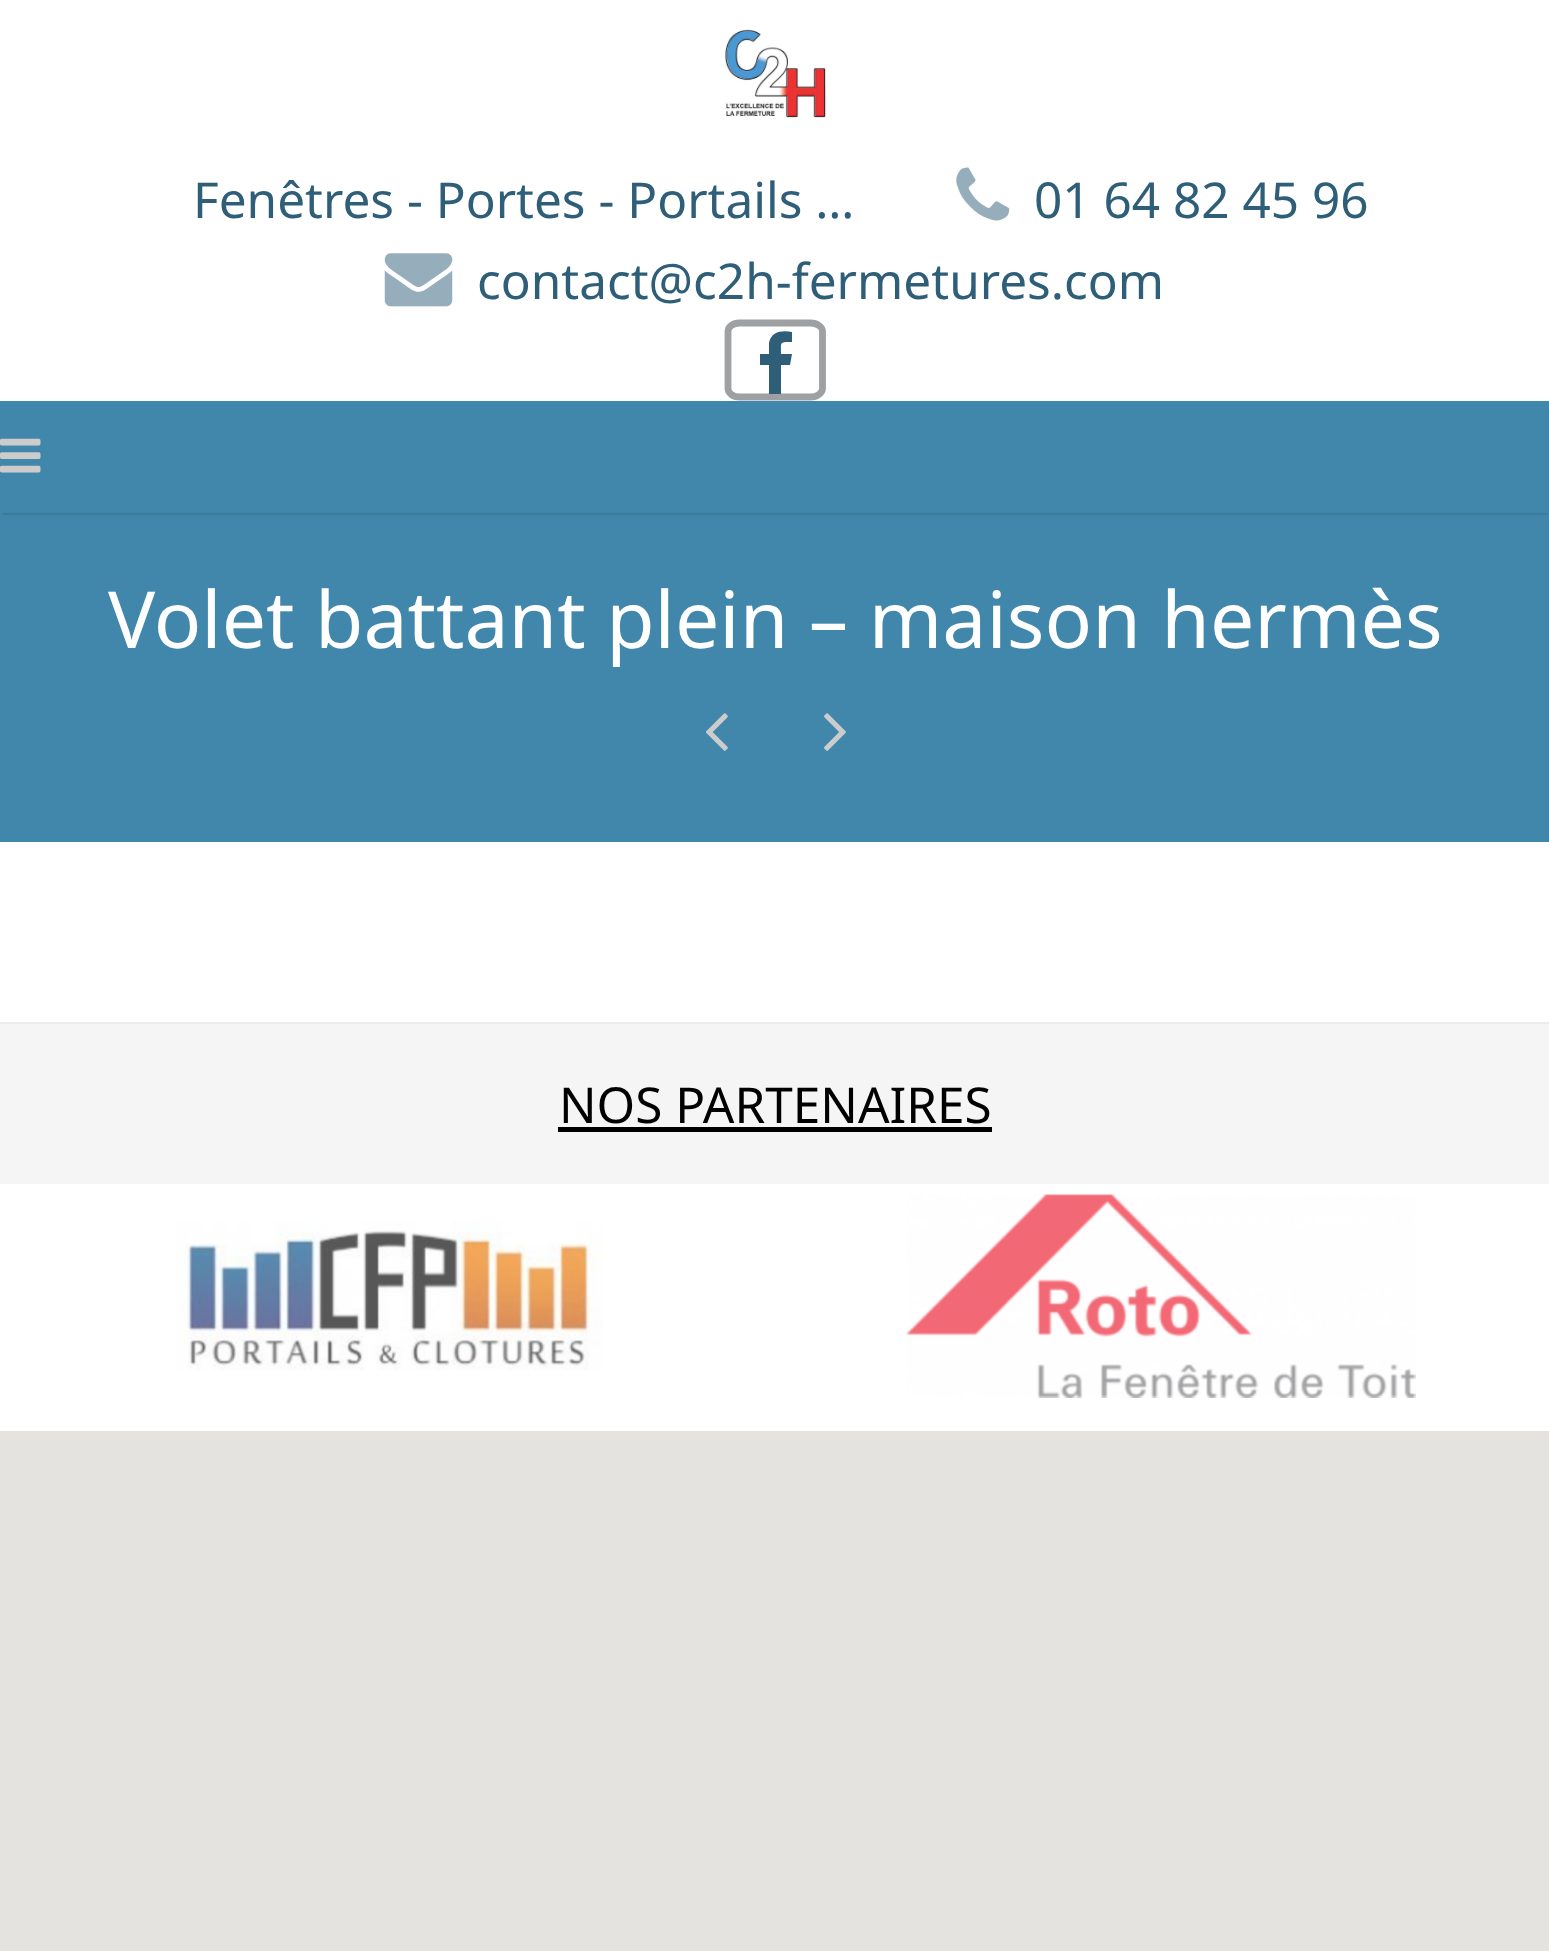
<svg xmlns="http://www.w3.org/2000/svg" width="1549" height="1951">
<style>
.a{font:49.5px Noto Sans;fill:#2e5e78}
.b{font:78.75px Noto Sans;fill:#fff}
.c{font:49.5px Noto Sans;fill:#000}
</style>
<rect width="100%" height="100%" fill="#fff"/>
<image href="1.png" x="724" y="29" width="103" height="89"/>
<image href="2.png" x="956" y="167" width="54" height="54"/>
<image href="3.png" x="384" y="253" width="69" height="54"/>
<path fill="none" stroke="#9ea0a1" stroke-width="6.8" d="M739.5 323h71c6.5 0 12 4 12 8.5v57c0 4.5-5.5 8.5-12 8.5h-71c-6.5 0-11.5-4-11.5-8.5v-57c0-4.5 5-8.5 11.5-8.5z"/>
<path fill="#2e5e78" d="M792 332v10c-13 0-11 0-11 12h11l-2 11h-9v29h-12v-29h-9v-11h9v-11c2-12 14-13 23-11z"/>
<path fill="#4087ab" d="M0 401h1549v441H0z"/>
<path fill="#3b7c9d" d="M2 513h1546v2H2z"/>
<image href="4.png" x="0" y="438" width="41" height="35"/>
<image href="5.png" x="706" y="713" width="22" height="38"/>
<image href="6.png" x="824" y="713" width="22" height="38"/>
<path fill="#f5f5f5" d="M0 1024h1549v160H0z"/>
<path fill="#f0ebeb" d="M0 1022h1549v2H0z"/>
<path fill="#000" d="M558 1127h434v5H558z"/>
<image href="7.png" x="176" y="1220" width="427" height="151"/>
<image href="8.png" x="906" y="1194" width="510" height="204"/>
<path fill="#e5e3df" d="M0 1431h1549v520H0z"/>
<text class="a" x="193" y="218">Fenêtres - Portes - Portails …</text>
<text class="a" x="1034" y="218">01 64 82 45 96</text>
<text class="a" x="477" y="299">contact@c2h-fermetures.com</text>
<text class="b" x="108" y="648">Volet battant plein – maison hermès</text>
<text class="c" x="559" y="1123">NOS PARTENAIRES</text>
</svg>
